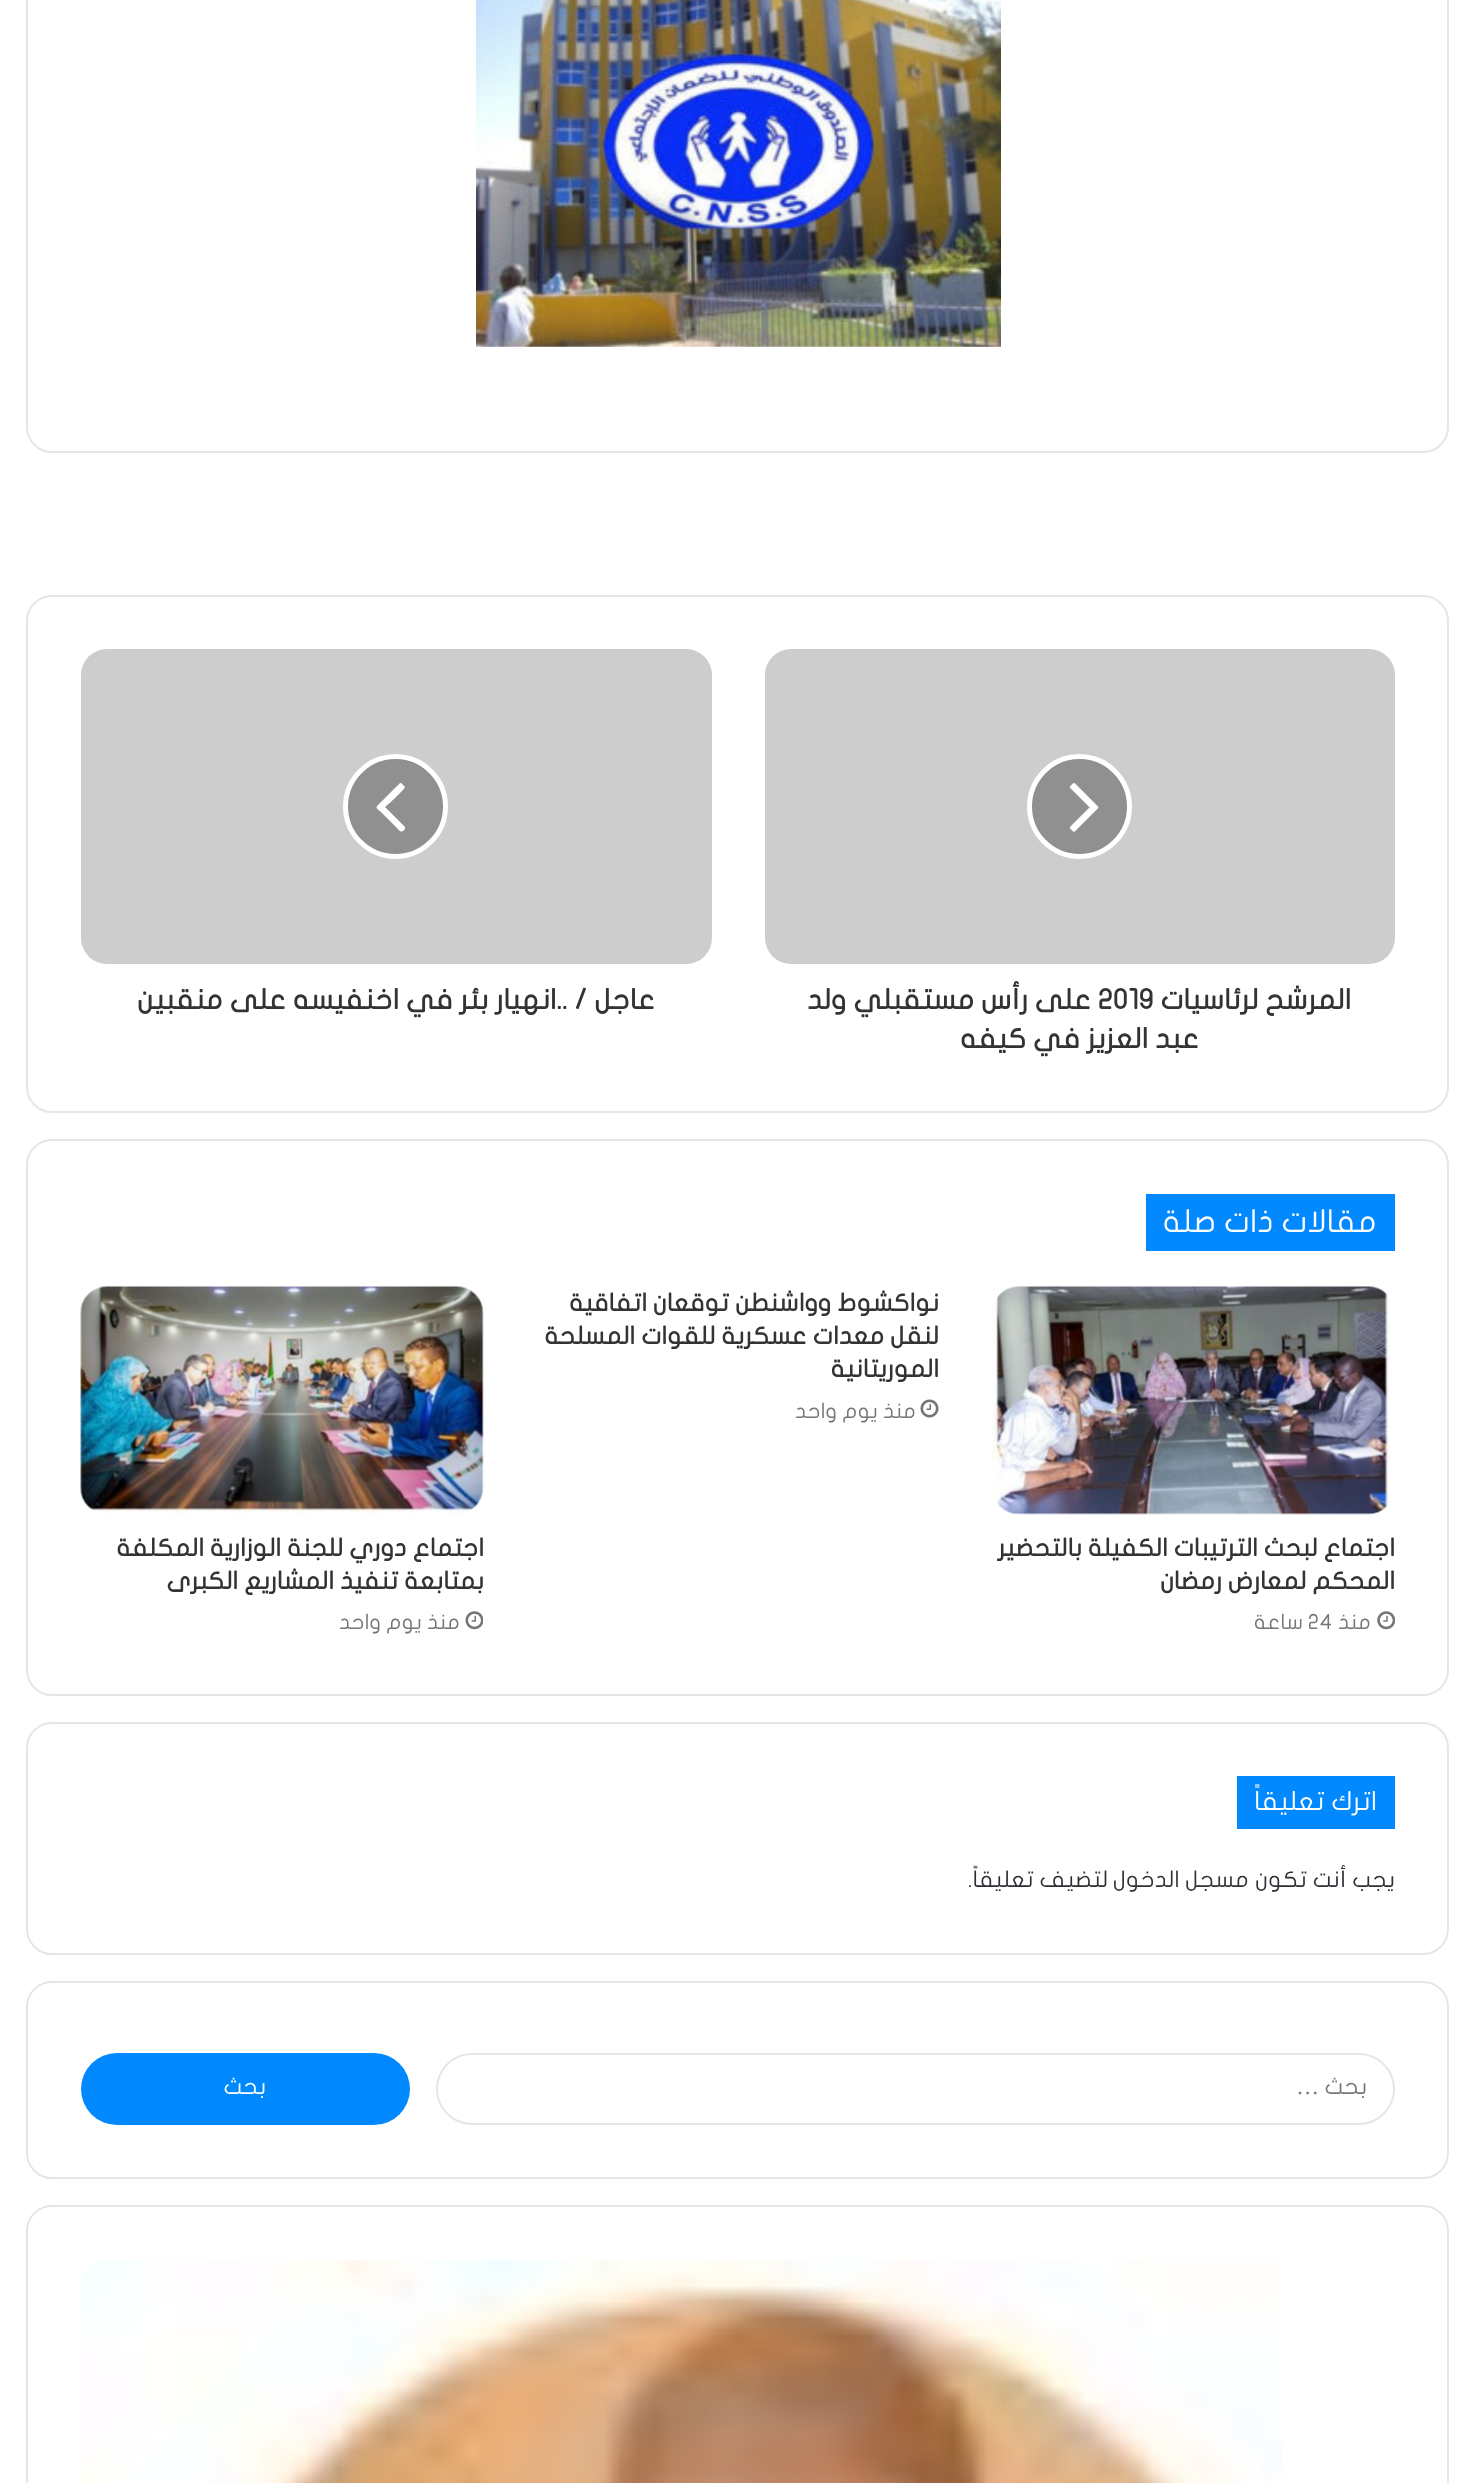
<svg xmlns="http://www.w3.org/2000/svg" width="1474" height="2483">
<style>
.a{font:bold 28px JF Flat;direction:rtl;fill:#333}
.b{font:bold 28px JF Flat;fill:#333}
.c{font:31.5px JF Flat;direction:rtl;fill:#fff}
.d{font:bold 24.5px JF Flat;direction:rtl;fill:#333}
.e{font:21px JF Flat;direction:rtl;fill:#767676}
.f{font:21px JF Flat;fill:#767676}
.g{font:26.25px JF Flat;direction:rtl;fill:#fff}
.h{font:22.75px JF Flat;direction:rtl;fill:#2c2f34}
.i{font:22.75px JF Flat;direction:rtl;fill:#333}
.j{font:22.75px JF Flat;direction:rtl;fill:#767676}
.k{font:22.75px Liberation Serif;direction:rtl;fill:#767676}
.l{font:22.75px JF Flat;direction:rtl;fill:#fff}
</style>
<rect width="100%" height="100%" fill="#fff"/>
<rect fill="none" stroke="#e6e6e6" stroke-width="2" x="27" y="-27" width="1421" height="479" rx="25"/>
<image href="1.png" x="476" y="0" width="525" height="347"/>
<rect fill="none" stroke="#e6e6e6" stroke-width="2" x="27" y="596" width="1421" height="516" rx="25"/>
<rect fill="#cdcdcd" x="765" y="649" width="630" height="315" rx="26"/>
<circle fill="#909090" stroke="#fff" stroke-width="5" cx="1079.5" cy="806.5" r="50"/>
<image href="2.png" x="1069" y="783" width="30" height="49"/>
<rect fill="#cdcdcd" x="81" y="649" width="631" height="315" rx="26"/>
<circle fill="#909090" stroke="#fff" stroke-width="5" cx="395.5" cy="806.5" r="50"/>
<path fill="#fff" d="M405 787c0 2-17 18-20 20l16 16c2 2 5 4 4 6c-4 5-5 2-9-2l-15-15c-6-5-6-4 0-10l15-15c4-3 4-6 7-2z"/>
<rect fill="none" stroke="#e6e6e6" stroke-width="2" x="27" y="1140" width="1421" height="555" rx="25"/>
<path fill="#0389ff" d="M1146 1194h249v57H1146z"/>
<image href="3.png" x="920" y="1399" width="19" height="19"/>
<image href="4.png" x="992" y="1286" width="398" height="229"/>
<image href="5.png" x="1377" y="1611" width="18" height="19"/>
<image href="6.png" x="80" y="1286" width="404" height="228"/>
<image href="7.png" x="465" y="1611" width="18" height="19"/>
<rect fill="none" stroke="#e6e6e6" stroke-width="2" x="27" y="1723" width="1421" height="231" rx="25"/>
<path fill="#0389ff" d="M1237 1776h158v53H1237z"/>
<rect fill="none" stroke="#e6e6e6" stroke-width="2" x="27" y="1982" width="1421" height="196" rx="25"/>
<rect fill="none" stroke="#e6e6e6" stroke-width="2" x="437" y="2054" width="957" height="70" rx="35"/>
<rect fill="#08f" x="81" y="2053" width="329" height="72" rx="36"/>
<rect fill="none" stroke="#e6e6e6" stroke-width="2" x="27" y="2206" width="1421" height="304" rx="25"/>
<image href="8.png" x="80" y="2260" width="1202" height="223"/>
<text class="a" x="1351" y="1009">المرشح لرئاسيات</text>
<text class="b" x="1098" y="1009">2019</text>
<text class="a" x="1091" y="1009">على رأس مستقبلي ولد</text>
<text class="a" x="1199" y="1048">عبد العزيز في كيفه</text>
<text class="a" x="655" y="1009">عاجل / ..انهيار بئر في اخنفيسه على منقبين</text>
<text class="c" x="1377" y="1232">مقالات ذات صلة</text>
<text class="d" x="939" y="1311">نواكشوط وواشنطن توقعان اتفاقية</text>
<text class="d" x="939" y="1344">لنقل معدات عسكرية للقوات المسلحة</text>
<text class="d" x="939" y="1377">الموريتانية</text>
<text class="e" x="916" y="1418">منذ يوم واحد</text>
<text class="d" x="1395" y="1556">اجتماع لبحث الترتيبات الكفيلة بالتحضير</text>
<text class="d" x="1395" y="1589">المحكم لمعارض رمضان</text>
<text class="e" x="1371" y="1629">منذ</text>
<text class="f" x="1308" y="1629">24</text>
<text class="e" x="1303" y="1629">ساعة</text>
<text class="d" x="484" y="1556">اجتماع دوري للجنة الوزارية المكلفة</text>
<text class="d" x="484" y="1589">بمتابعة تنفيذ المشاريع الكبرى</text>
<text class="e" x="460" y="1629">منذ يوم واحد</text>
<text class="g" x="1377" y="1810">اترك تعليقاً</text>
<text class="h" x="1395" y="1887">يجب أنت تكون</text>
<text class="i" x="1249" y="1887">مسجل الدخول</text>
<text class="h" x="1108" y="1887">لتضيف تعليقاً.</text>
<text class="j" x="1367" y="2094">بحث</text>
<text class="k" x="1319" y="2094">…</text>
<text class="l" x="266" y="2094">بحث</text>
</svg>
